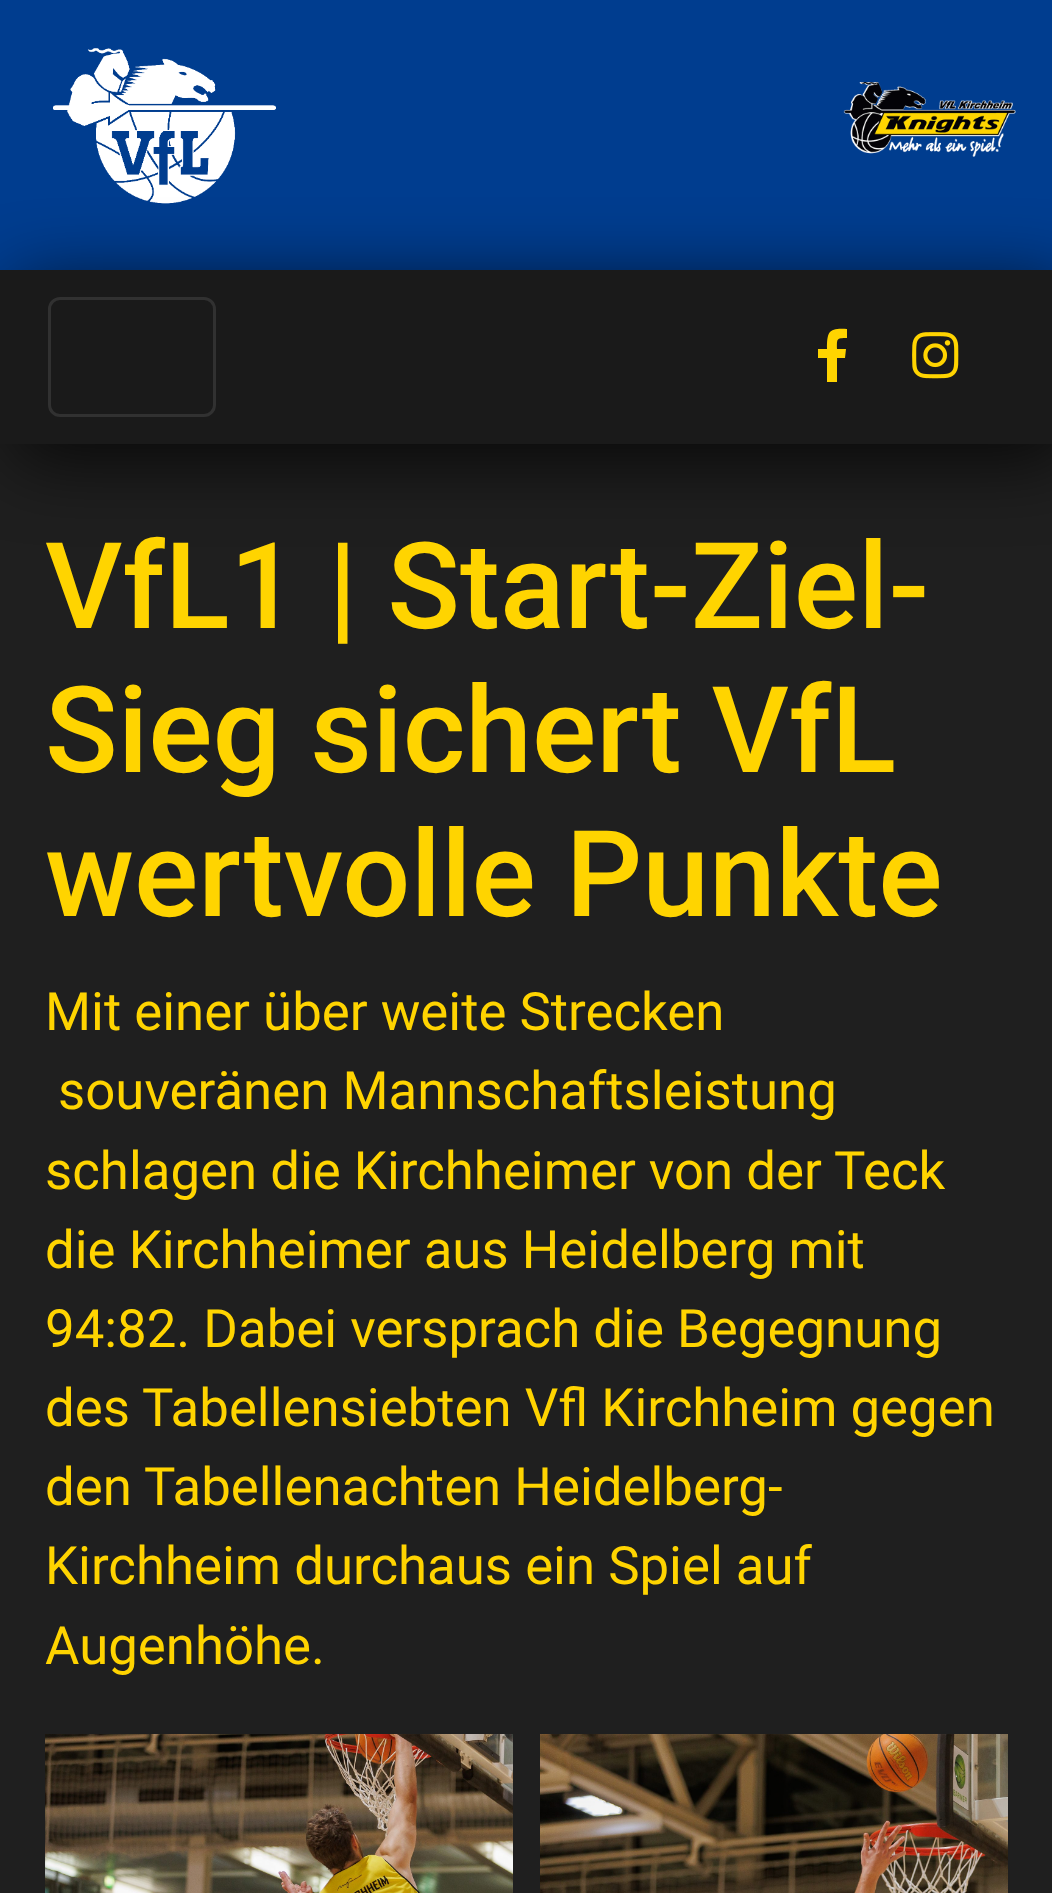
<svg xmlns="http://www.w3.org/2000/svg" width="1052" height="1893">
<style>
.a{font:500 120px Roboto;fill:#ffd400}
.b{font:52.75px Roboto;fill:#ffd400}
</style>
<rect width="100%" height="100%" fill="#1f1f1f"/>
<path fill="#003d8f" d="M0 0h1052v270H0z"/>
<image href="1.png" x="53" y="48" width="223" height="156"/>
<image href="2.png" x="843" y="82" width="173" height="75"/>
<path fill="#000000bf" filter="blur(37.5px)" d="M15 285h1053v174H15z"/>
<path fill="#1a1a1a" d="M0 270h1052v174H0z"/>
<rect fill="none" stroke="#313131" stroke-width="3" x="49.5" y="298.5" width="165" height="117" rx="10.5"/>
<path fill="#ffd400" d="M845 358h-8v24h-10v-24h-9v-9h9c0-18 2-21 20-20v9c-11 0-10 1-10 11h9z"/>
<image href="3.png" x="912" y="332" width="47" height="47"/>
<image href="4.png" x="45" y="1734" width="468" height="159"/>
<image href="5.png" x="540" y="1734" width="468" height="159"/>
<text class="a" x="45" y="628">VfL1 | Start-Ziel-</text>
<text class="a" x="45" y="772">Sieg sichert VfL</text>
<text class="a" x="45" y="916">wertvolle Punkte</text>
<text class="b" x="45" y="1030">Mit einer über weite Strecken</text>
<text class="b" x="58" y="1109">souveränen Mannschaftsleistung</text>
<text class="b" x="45" y="1189">schlagen die Kirchheimer von der Teck</text>
<text class="b" x="45" y="1268">die Kirchheimer aus Heidelberg mit</text>
<text class="b" x="45" y="1347">94:82. Dabei versprach die Begegnung</text>
<text class="b" x="45" y="1426">des Tabellensiebten Vfl Kirchheim gegen</text>
<text class="b" x="45" y="1505">den Tabellenachten Heidelberg-</text>
<text class="b" x="45" y="1584">Kirchheim durchaus ein Spiel auf</text>
<text class="b" x="45" y="1664">Augenhöhe.</text>
</svg>
